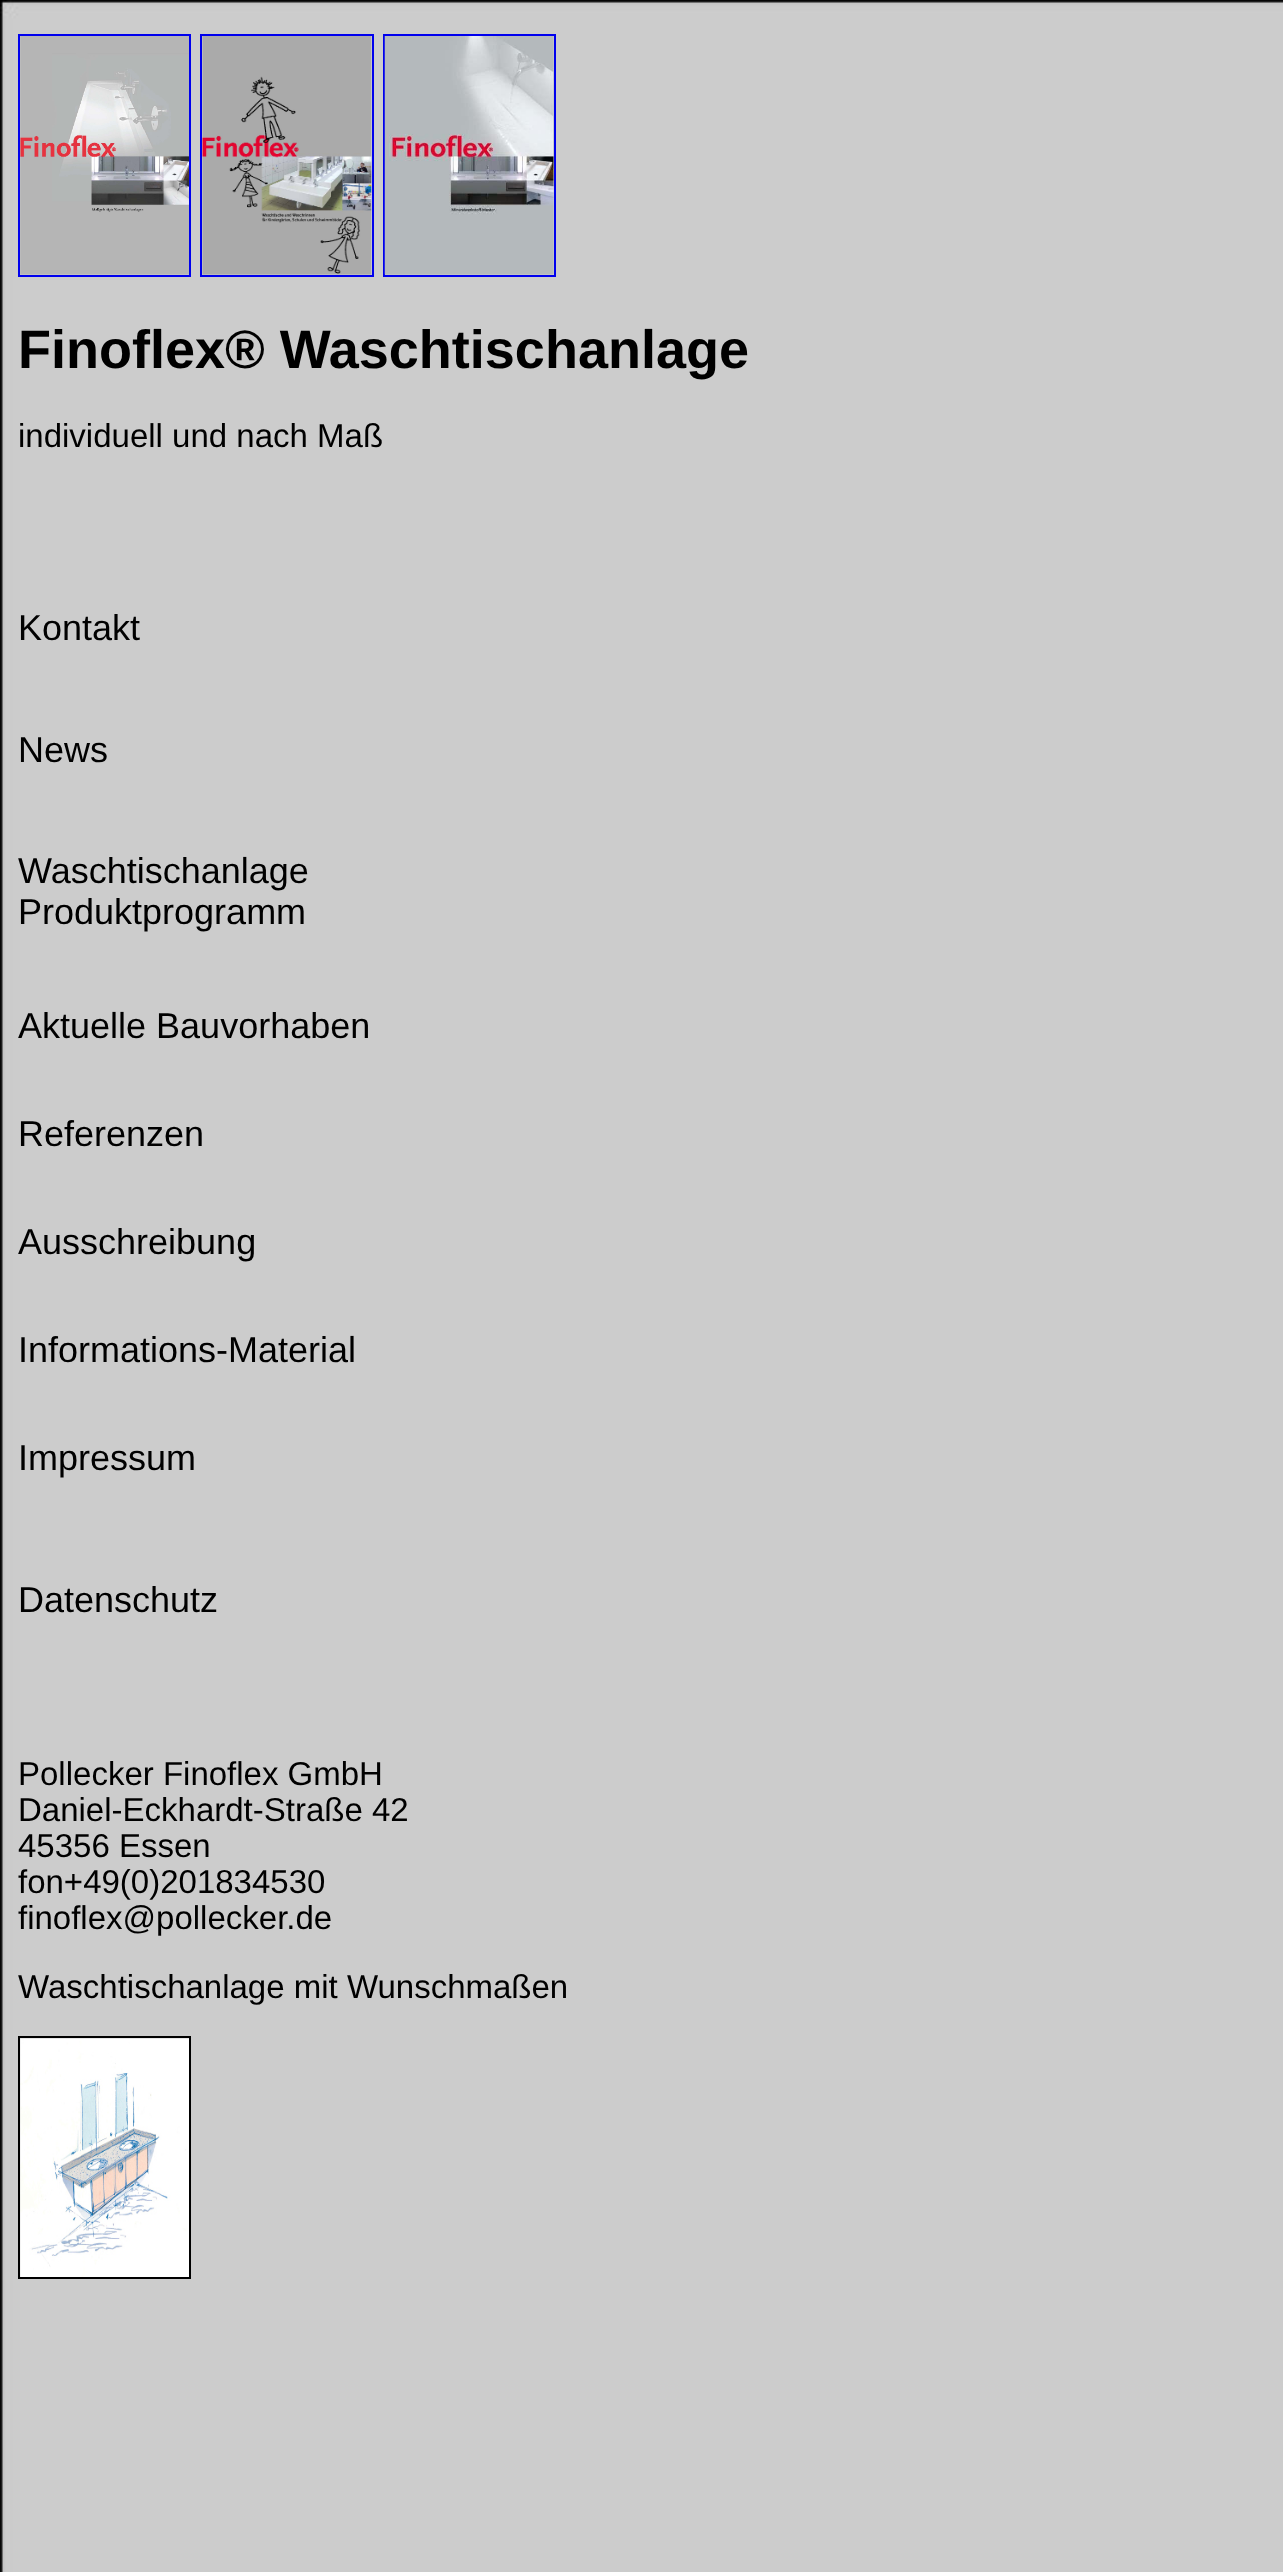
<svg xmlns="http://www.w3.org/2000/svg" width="1283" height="2572">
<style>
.a{font:bold 54px Liberation Sans;fill:#000}
.b{font:33px Liberation Sans;fill:#000}
.c{font:36px Liberation Sans;fill:#000}
</style>
<rect width="100%" height="100%" fill="#fff"/>
<image href="1.png" x="0" y="0" width="1283" height="2572"/>
<path fill="none" stroke="#00e" stroke-width="2" d="M19 35h171v241H19z"/>
<path fill="none" stroke="#00e" stroke-width="2" d="M201 35h172v241H201z"/>
<path fill="none" stroke="#00e" stroke-width="2" d="M384 35h171v241H384z"/>
<image href="2.png" x="20" y="36" width="169" height="239"/>
<image href="3.png" x="202" y="36" width="170" height="239"/>
<image href="4.png" x="384" y="36" width="170" height="239"/>
<path fill="none" stroke="#000" stroke-width="2" d="M19 2037h171v241H19z"/>
<image href="5.png" x="20" y="2038" width="169" height="239"/>
<text class="a" x="18" y="368">Finoflex® Waschtischanlage</text>
<text class="b" x="18" y="447">individuell und nach Maß</text>
<text class="c" x="18" y="640">Kontakt</text>
<text class="c" x="18" y="762">News</text>
<text class="c" x="18" y="883">Waschtischanlage</text>
<text class="c" x="18" y="924">Produktprogramm</text>
<text class="c" x="18" y="1038">Aktuelle Bauvorhaben</text>
<text class="c" x="18" y="1146">Referenzen</text>
<text class="c" x="18" y="1254">Ausschreibung</text>
<text class="c" x="18" y="1362">Informations-Material</text>
<text class="c" x="18" y="1470">Impressum</text>
<text class="c" x="18" y="1612">Datenschutz</text>
<text class="b" x="18" y="1785">Pollecker Finoflex GmbH</text>
<text class="b" x="18" y="1821">Daniel-Eckhardt-Straße 42</text>
<text class="b" x="18" y="1857">45356 Essen</text>
<text class="b" x="18" y="1893">fon+49(0)201834530</text>
<text class="b" x="18" y="1929">finoflex@pollecker.de</text>
<text class="b" x="18" y="1998">Waschtischanlage mit Wunschmaßen</text>
</svg>
